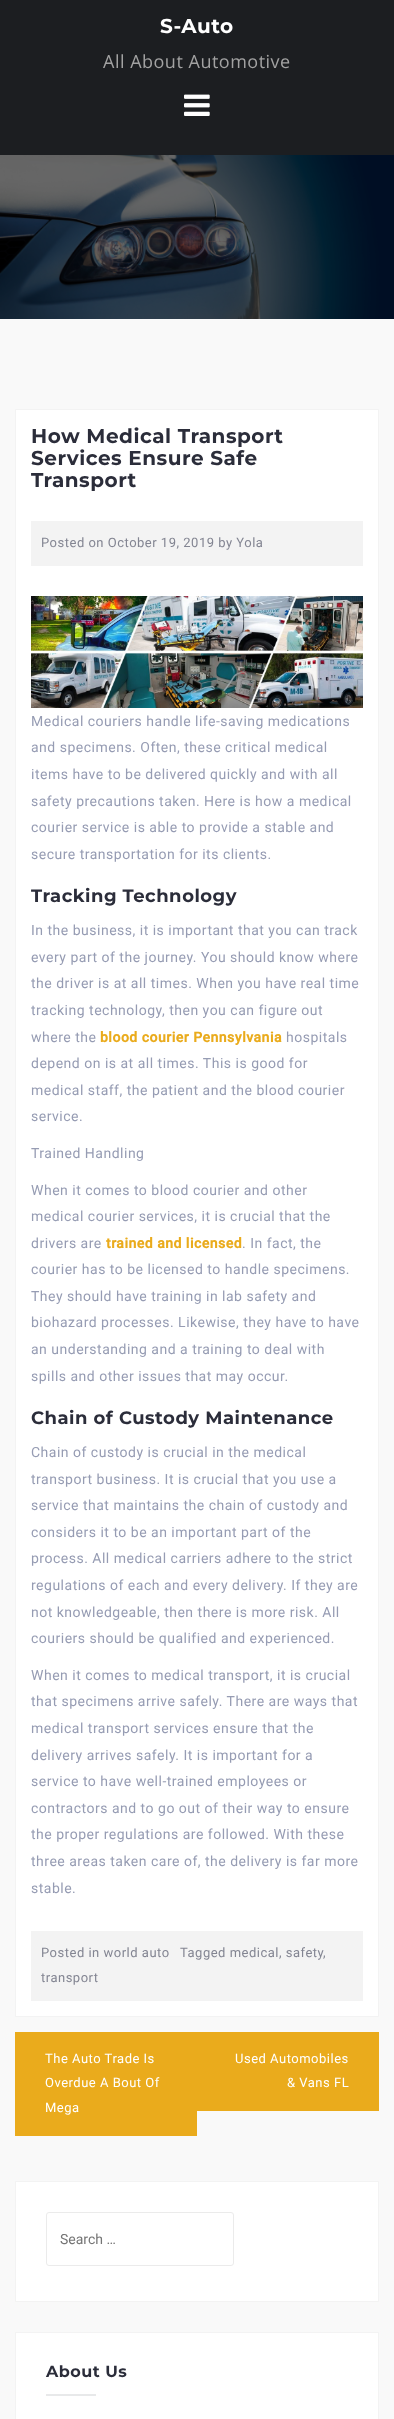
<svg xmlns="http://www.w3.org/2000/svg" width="394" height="2419">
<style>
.a{font:bold 20px Montserrat;letter-spacing:0.5px;fill:#fff}
.b{font:18px Open Sans;letter-spacing:0.5px;fill:#a2a2a2}
.c{font:bold 20px Montserrat;letter-spacing:0.5px;fill:#2b2d3a}
.d{font:13px Roboto;letter-spacing:0.5px;fill:#838592}
.e{font:14px Roboto;letter-spacing:0.5px;fill:#969cb3}
.f{font:bold 18px Montserrat;letter-spacing:0.5px;fill:#2b2d3a}
.g{font:bold 14px Roboto;letter-spacing:0.5px;fill:#eaab1c}
.h{font:13px Roboto;letter-spacing:0.5px;fill:#fff}
.i{font:14px Roboto;fill:#757575}
.j{font:bold 16px Montserrat;letter-spacing:0.5px;fill:#2b2d3a}
</style>
<rect width="100%" height="100%" fill="#f9f9f9"/>
<path fill="#1c1e21" d="M0 0h394v155H0z"/>
<image href="1.png" x="184" y="94" width="26" height="22"/>
<image href="2.png" x="0" y="155" width="394" height="164"/>
<path fill="#fff" stroke="#f3f3f3" d="M15.5 409.5h363v1607H15.5z"/>
<path fill="#f3f3f3" d="M31 521h332v45H31z"/>
<image href="3.png" x="31" y="596" width="332" height="112"/>
<path fill="#f3f3f3" d="M31 1931h332v70H31z"/>
<path fill="#eaab1c" d="M15 2032h182v104H15z"/>
<path fill="#eaab1c" d="M197 2032h182v79H197z"/>
<path fill="#fff" stroke="#f3f3f3" d="M15.5 2181.5h363v120H15.5z"/>
<rect fill="none" stroke="#ebebeb" x="46.5" y="2212.5" width="187" height="53" rx="2.5"/>
<path fill="#fff" stroke="#f3f3f3" d="M15.5 2332.5h363v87H15.5z"/>
<path fill="#e8e9ea" d="M46 2394h50v2H46z"/>
<text class="a" x="160" y="33">S-Auto</text>
<text class="b" x="103" y="68">All About Automotive</text>
<text class="c" x="31" y="443">How Medical Transport</text>
<text class="c" x="31" y="465">Services Ensure Safe</text>
<text class="c" x="31" y="487">Transport</text>
<text class="d" x="41" y="547">Posted on October 19, 2019 by Yola</text>
<text class="e" x="31" y="726">Medical couriers handle life-saving medications</text>
<text class="e" x="31" y="752">and specimens. Often, these critical medical</text>
<text class="e" x="31" y="779">items have to be delivered quickly and with all</text>
<text class="e" x="31" y="806">safety precautions taken. Here is how a medical</text>
<text class="e" x="31" y="832">courier service is able to provide a stable and</text>
<text class="e" x="31" y="859">secure transportation for its clients.</text>
<text class="f" x="31" y="902">Tracking Technology</text>
<text class="e" x="31" y="935">In the business, it is important that you can track</text>
<text class="e" x="31" y="962">every part of the journey. You should know where</text>
<text class="e" x="31" y="988">the driver is at all times. When you have real time</text>
<text class="e" x="31" y="1015">tracking technology, then you can figure out</text>
<text class="e" x="31" y="1042">where the</text>
<text class="g" x="100" y="1042">blood courier Pennsylvania</text>
<text class="e" x="286" y="1042">hospitals</text>
<text class="e" x="31" y="1068">depend on is at all times. This is good for</text>
<text class="e" x="31" y="1095">medical staff, the patient and the blood courier</text>
<text class="e" x="31" y="1121">service.</text>
<text class="e" x="31" y="1158">Trained Handling</text>
<text class="e" x="31" y="1195">When it comes to blood courier and other</text>
<text class="e" x="31" y="1221">medical courier services, it is crucial that the</text>
<text class="e" x="31" y="1248">drivers are</text>
<text class="g" x="106" y="1248">trained and licensed</text>
<text class="e" x="242" y="1248">. In fact, the</text>
<text class="e" x="31" y="1274">courier has to be licensed to handle specimens.</text>
<text class="e" x="31" y="1301">They should have training in lab safety and</text>
<text class="e" x="31" y="1327">biohazard processes. Likewise, they have to have</text>
<text class="e" x="31" y="1354">an understanding and a training to deal with</text>
<text class="e" x="31" y="1381">spills and other issues that may occur.</text>
<text class="f" x="31" y="1424">Chain of Custody Maintenance</text>
<text class="e" x="31" y="1457">Chain of custody is crucial in the medical</text>
<text class="e" x="31" y="1484">transport business. It is crucial that you use a</text>
<text class="e" x="31" y="1510">service that maintains the chain of custody and</text>
<text class="e" x="31" y="1537">considers it to be an important part of the</text>
<text class="e" x="31" y="1563">process. All medical carriers adhere to the strict</text>
<text class="e" x="31" y="1590">regulations of each and every delivery. If they are</text>
<text class="e" x="31" y="1617">not knowledgeable, then there is more risk. All</text>
<text class="e" x="31" y="1643">couriers should be qualified and experienced.</text>
<text class="e" x="31" y="1680">When it comes to medical transport, it is crucial</text>
<text class="e" x="31" y="1706">that specimens arrive safely. There are ways that</text>
<text class="e" x="31" y="1733">medical transport services ensure that the</text>
<text class="e" x="31" y="1760">delivery arrives safely. It is important for a</text>
<text class="e" x="31" y="1786">service to have well-trained employees or</text>
<text class="e" x="31" y="1813">contractors and to go out of their way to ensure</text>
<text class="e" x="31" y="1839">the proper regulations are followed. With these</text>
<text class="e" x="31" y="1866">three areas taken care of, the delivery is far more</text>
<text class="e" x="31" y="1893">stable.</text>
<text class="d" x="41" y="1957">Posted in world auto</text>
<text class="d" x="180" y="1957">Tagged medical, safety</text>
<text class="d" x="323" y="1957">,</text>
<text class="d" x="41" y="1982">transport</text>
<text class="h" x="45" y="2063">The Auto Trade Is</text>
<text class="h" x="45" y="2087">Overdue A Bout Of</text>
<text class="h" x="45" y="2112">Mega</text>
<text class="h" x="235" y="2063">Used Automobiles</text>
<text class="h" x="287" y="2087">&amp; Vans FL</text>
<text class="i" x="60" y="2244">Search …</text>
<text class="j" x="46" y="2377">About Us</text>
</svg>
